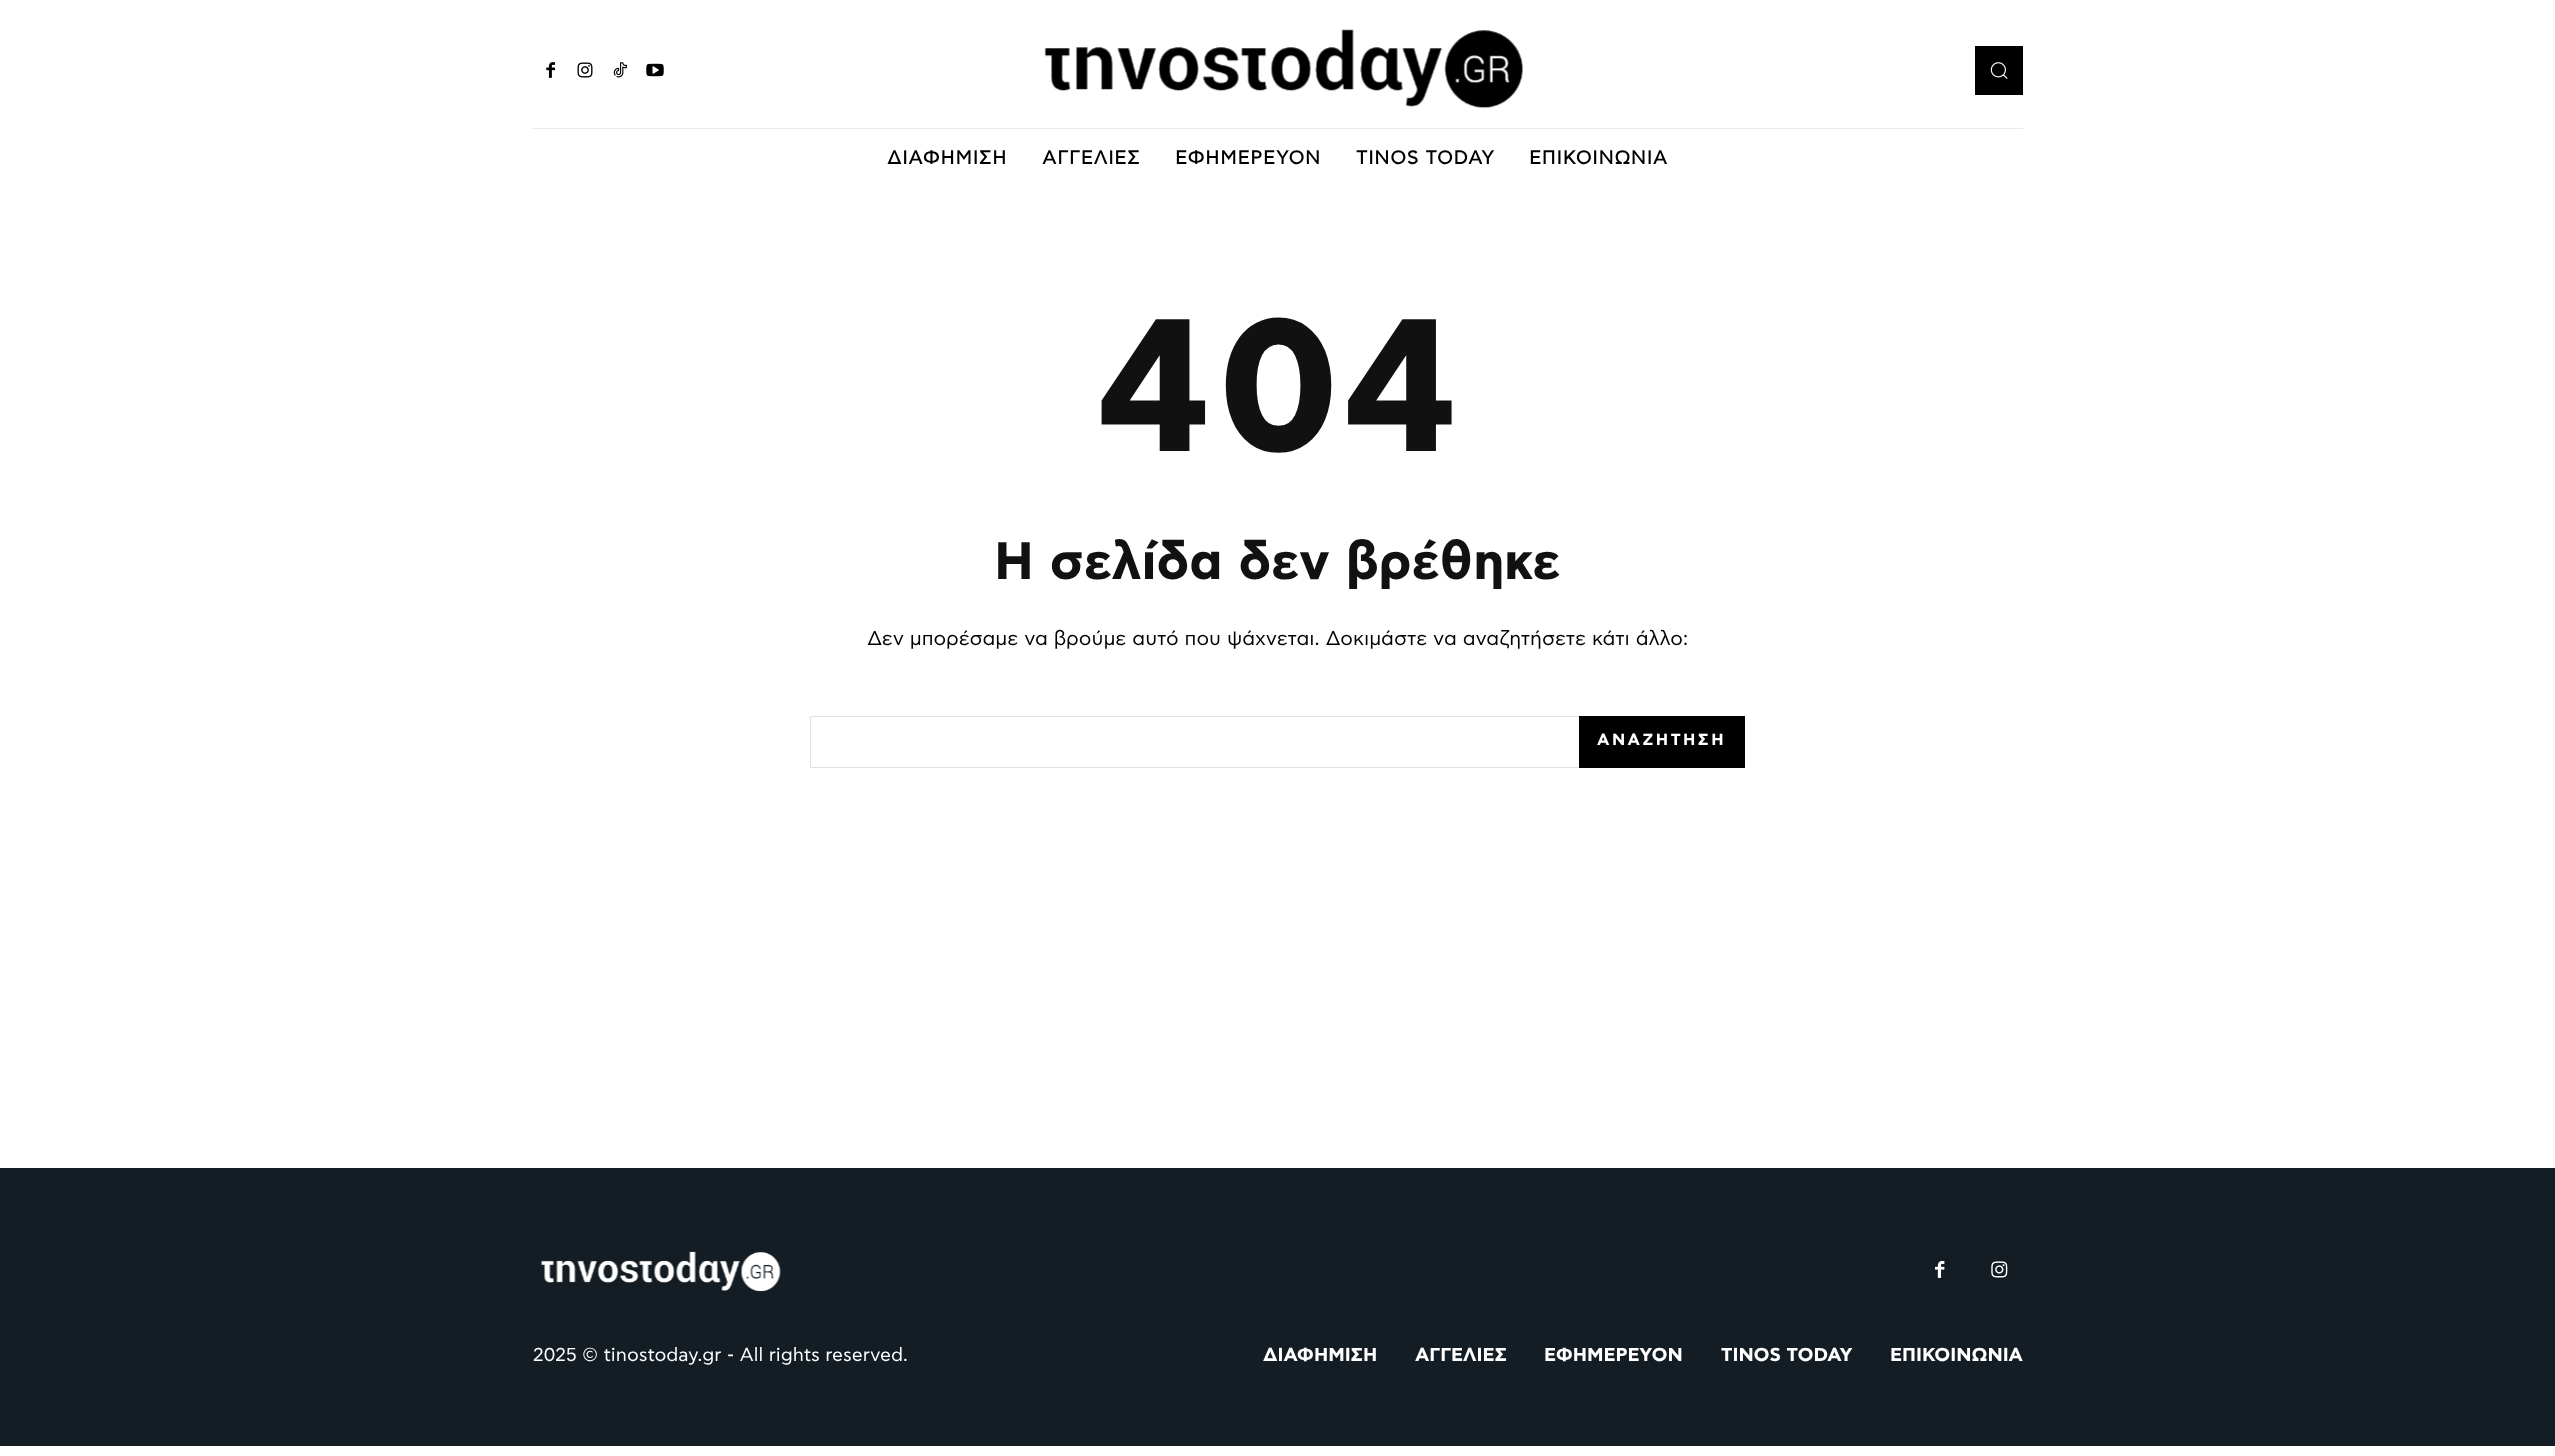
<svg xmlns="http://www.w3.org/2000/svg" width="2555" height="1456">
<style>
.a{font:bold 18.75px 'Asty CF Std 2';letter-spacing:0.9px;fill:#000}
.b{font:bold 188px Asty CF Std;fill:#111}
.c{font:bold 52.5px Asty CF Std;fill:#111}
.d{font:20px Asty CF Std;fill:#000}
.e{font:bold 16.25px Asty CF Std;letter-spacing:2.5px;fill:#fff}
.f{font:18.75px Asty CF Std;fill:#fff}
.g{font:bold 18.75px Asty CF Std;fill:#fff}
</style>
<rect width="100%" height="100%" fill="#fff"/>
<image href="1.png" x="546" y="62" width="9" height="16"/>
<image href="2.png" x="577" y="62" width="16" height="16"/>
<image href="3.png" x="613" y="62" width="14" height="16"/>
<image href="4.png" x="646" y="63" width="18" height="14"/>
<image href="5.png" x="1044" y="29" width="479" height="80"/>
<path fill="#000" d="M1975 46h48v49H1975z"/>
<image href="6.png" x="1990" y="62" width="18" height="17"/>
<path fill="#e9e9e9" d="M533 128h1490v1H533z"/>
<path fill="none" stroke="#e1e1e1" d="M810.5 716.5h934v51H810.5z"/>
<path fill="#000" d="M1579 716h166v52H1579z"/>
<path fill="#131d23" d="M0 1168h2555v278H0z"/>
<image href="7.png" x="541" y="1251" width="240" height="41"/>
<image href="8.png" x="1935" y="1261" width="10" height="17"/>
<image href="9.png" x="1991" y="1261" width="17" height="17"/>
<text class="a" x="887" y="164">ΔΙΑΦΗΜΙΣΗ</text>
<text class="a" x="1042" y="164">ΑΓΓΕΛΙΕΣ</text>
<text class="a" x="1175" y="164">ΕΦΗΜΕΡΕΥΟΝ</text>
<text class="a" x="1356" y="164">TINOS TODAY</text>
<text class="a" x="1529" y="164">ΕΠΙΚΟΙΝΩΝΙΑ</text>
<text class="b" x="1096" y="451">404</text>
<text class="c" x="994" y="579">Η σελίδα δεν βρέθηκε</text>
<text class="d" x="867" y="645">Δεν μπορέσαμε να βρούμε αυτό που ψάχνεται. Δοκιμάστε να αναζητήσετε κάτι άλλο:</text>
<text class="e" x="1597" y="745">ΑΝΑΖΗΤΗΣΗ</text>
<text class="f" x="533" y="1361">2025 © tinostoday.gr - All rights reserved.</text>
<text class="g" x="1263" y="1361">ΔΙΑΦΗΜΙΣΗ</text>
<text class="g" x="1415" y="1361">ΑΓΓΕΛΙΕΣ</text>
<text class="g" x="1544" y="1361">ΕΦΗΜΕΡΕΥΟΝ</text>
<text class="g" x="1721" y="1361">TINOS TODAY</text>
<text class="g" x="1890" y="1361">ΕΠΙΚΟΙΝΩΝΙΑ</text>
</svg>
